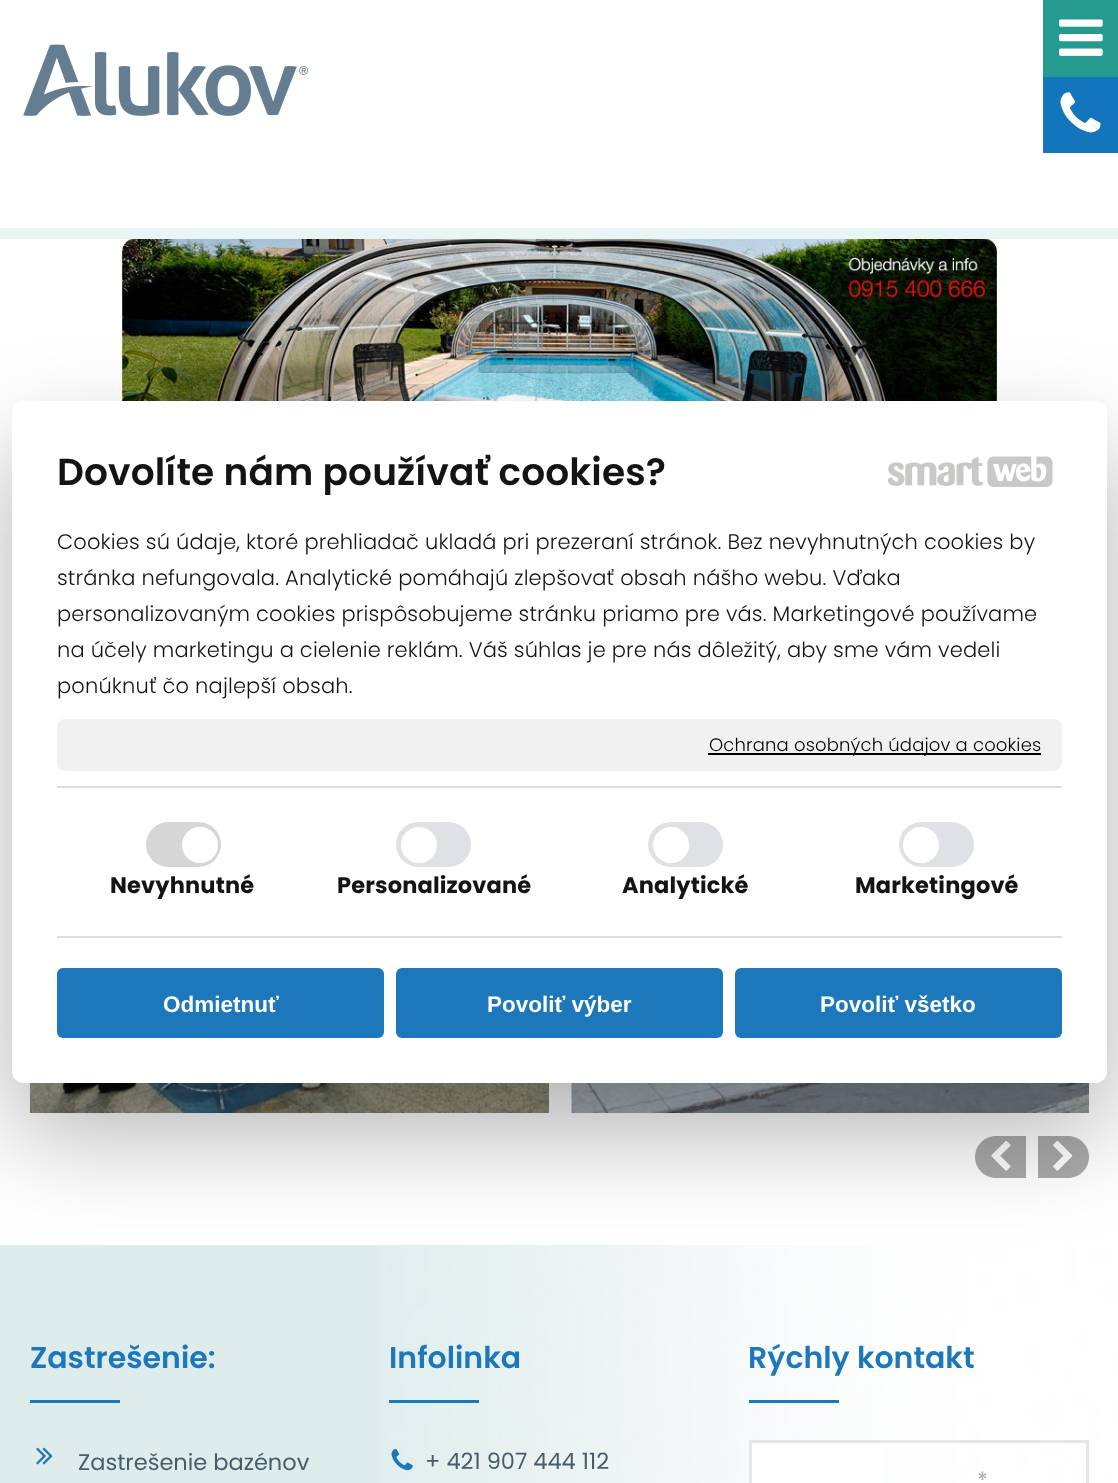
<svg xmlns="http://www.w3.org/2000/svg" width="1118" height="1483">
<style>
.a{font:600 37.5px Poppins;letter-spacing:0.15px;fill:#141414}
.b{font:300 21px Poppins;letter-spacing:0.15px;fill:#141414}
.c{font:300 18px Poppins;letter-spacing:0.15px;fill:#000}
.d{font:bold 22.5px Poppins;letter-spacing:0.15px;fill:#141414}
.e{font:bold 22.5px Liberation Sans;fill:#fff}
.f{font:600 30px Poppins;fill:#1c78ba}
.g{font:22.5px Poppins;fill:#495c6b}
.h{font:22.5px Poppins;fill:#aaa}
</style>
<rect width="100%" height="100%" fill="#fff"/>
<path fill="#259b90" d="M1043 0h75v77H1043z"/>
<image href="1.png" x="1059" y="19" width="44" height="37"/>
<path fill="#1375bc" d="M1043 77h75v76H1043z"/>
<image href="2.png" x="1060" y="92" width="41" height="41"/>
<path fill="#e9f5f4" d="M0 228h1118v11H0z"/>
<image href="3.png" x="23" y="44" width="286" height="72"/>
<image href="4.png" x="119" y="239" width="881" height="162"/>
<image href="5.png" x="30" y="1083" width="519" height="30"/>
<image href="6.png" x="571" y="1083" width="518" height="30"/>
<path fill="#aaa" d="M996 1136h30v42h-30c-11.5 0-21-9.5-21-21c0-11.5 9.5-21 21-21z"/>
<image href="7.png" x="991" y="1141" width="20" height="30"/>
<path fill="#aaa" d="M1038 1136h30c11.5 0 21 9.5 21 21c0 11.5-9.5 21-21 21h-30z"/>
<image href="8.png" x="1053" y="1141" width="20" height="30"/>
<path fill="#deeceb" d="M0 1245h380v238H0z"/>
<image href="11.png" x="380" y="1245" width="738" height="238"/>
<rect fill="#0000004d" filter="blur(51px)" x="12" y="449" width="1095" height="682" rx="12"/>
<rect fill="#fff" x="12" y="401" width="1095" height="682" rx="12"/>
<image href="9.png" x="887" y="457" width="97" height="29"/>
<image href="10.png" x="987" y="456" width="66" height="31"/>
<rect fill="#f1f1f1" x="57" y="719" width="1005" height="52" rx="8"/>
<path fill="#000" d="M708 753h333v2H708z"/>
<path fill="#ddd" d="M57 786h1005v2H57z"/>
<path fill="#ddd" d="M57 936h1005v2H57z"/>
<rect fill="#d6d6d6" x="146" y="822" width="75" height="45" rx="22.5"/>
<circle fill="#fff" cx="200" cy="845" r="18"/>
<rect fill="#dfe1e4" x="396" y="822" width="75" height="45" rx="22.5"/>
<circle fill="#fff" cx="419" cy="845" r="18"/>
<rect fill="#dfe1e4" x="648" y="822" width="75" height="45" rx="22.5"/>
<circle fill="#fff" cx="671" cy="845" r="18"/>
<rect fill="#dfe1e4" x="899" y="822" width="75" height="45" rx="22.5"/>
<circle fill="#fff" cx="921" cy="845" r="18"/>
<rect fill="#1c78ba" x="57" y="968" width="327" height="70" rx="6"/>
<rect fill="#1c78ba" x="396" y="968" width="327" height="70" rx="6"/>
<rect fill="#1c78ba" x="735" y="968" width="327" height="70" rx="6"/>
<path fill="#1c78ba" d="M30 1400h90v3H30z"/>
<image href="12.png" x="36" y="1447" width="17" height="18"/>
<path fill="#1c78ba" d="M389 1400h90v3H389z"/>
<image href="13.png" x="391" y="1449" width="22" height="22"/>
<path fill="#1c78ba" d="M749 1400h90v3H749z"/>
<path fill="#fff" d="M752 1443h132v40H752z"/>
<path fill="none" stroke="#e6e6e6" stroke-width="3" d="M750.5 1441.5h337v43H750.5z"/>
<text class="a" x="57" y="485">Dovolíte nám používať cookies?</text>
<text class="b" x="57" y="549">Cookies sú údaje, ktoré prehliadač ukladá pri prezeraní stránok. Bez nevyhnutných cookies by</text>
<text class="b" x="57" y="585">stránka nefungovala. Analytické pomáhajú zlepšovať obsah nášho webu. Vďaka</text>
<text class="b" x="57" y="621">personalizovaným cookies prispôsobujeme stránku priamo pre vás. Marketingové používame</text>
<text class="b" x="57" y="657">na účely marketingu a cielenie reklám. Váš súhlas je pre nás dôležitý, aby sme vám vedeli</text>
<text class="b" x="57" y="693">ponúknuť čo najlepší obsah.</text>
<text class="c" x="709" y="751">Ochrana osobných údajov a cookies</text>
<text class="d" x="110" y="893">Nevyhnutné</text>
<text class="d" x="337" y="893">Personalizované</text>
<text class="d" x="622" y="893">Analytické</text>
<text class="d" x="855" y="893">Marketingové</text>
<text class="e" x="163" y="1012">Odmietnuť</text>
<text class="e" x="487" y="1012">Povoliť výber</text>
<text class="e" x="820" y="1012">Povoliť všetko</text>
<text class="f" x="30" y="1368">Zastrešenie:</text>
<text class="g" x="78" y="1470">Zastrešenie bazénov</text>
<text class="f" x="389" y="1368">Infolinka</text>
<text class="g" x="425" y="1469">+ 421 907 444 112</text>
<text class="f" x="748" y="1368">Rýchly kontakt</text>
<text class="h" x="977" y="1488">*</text>
</svg>
